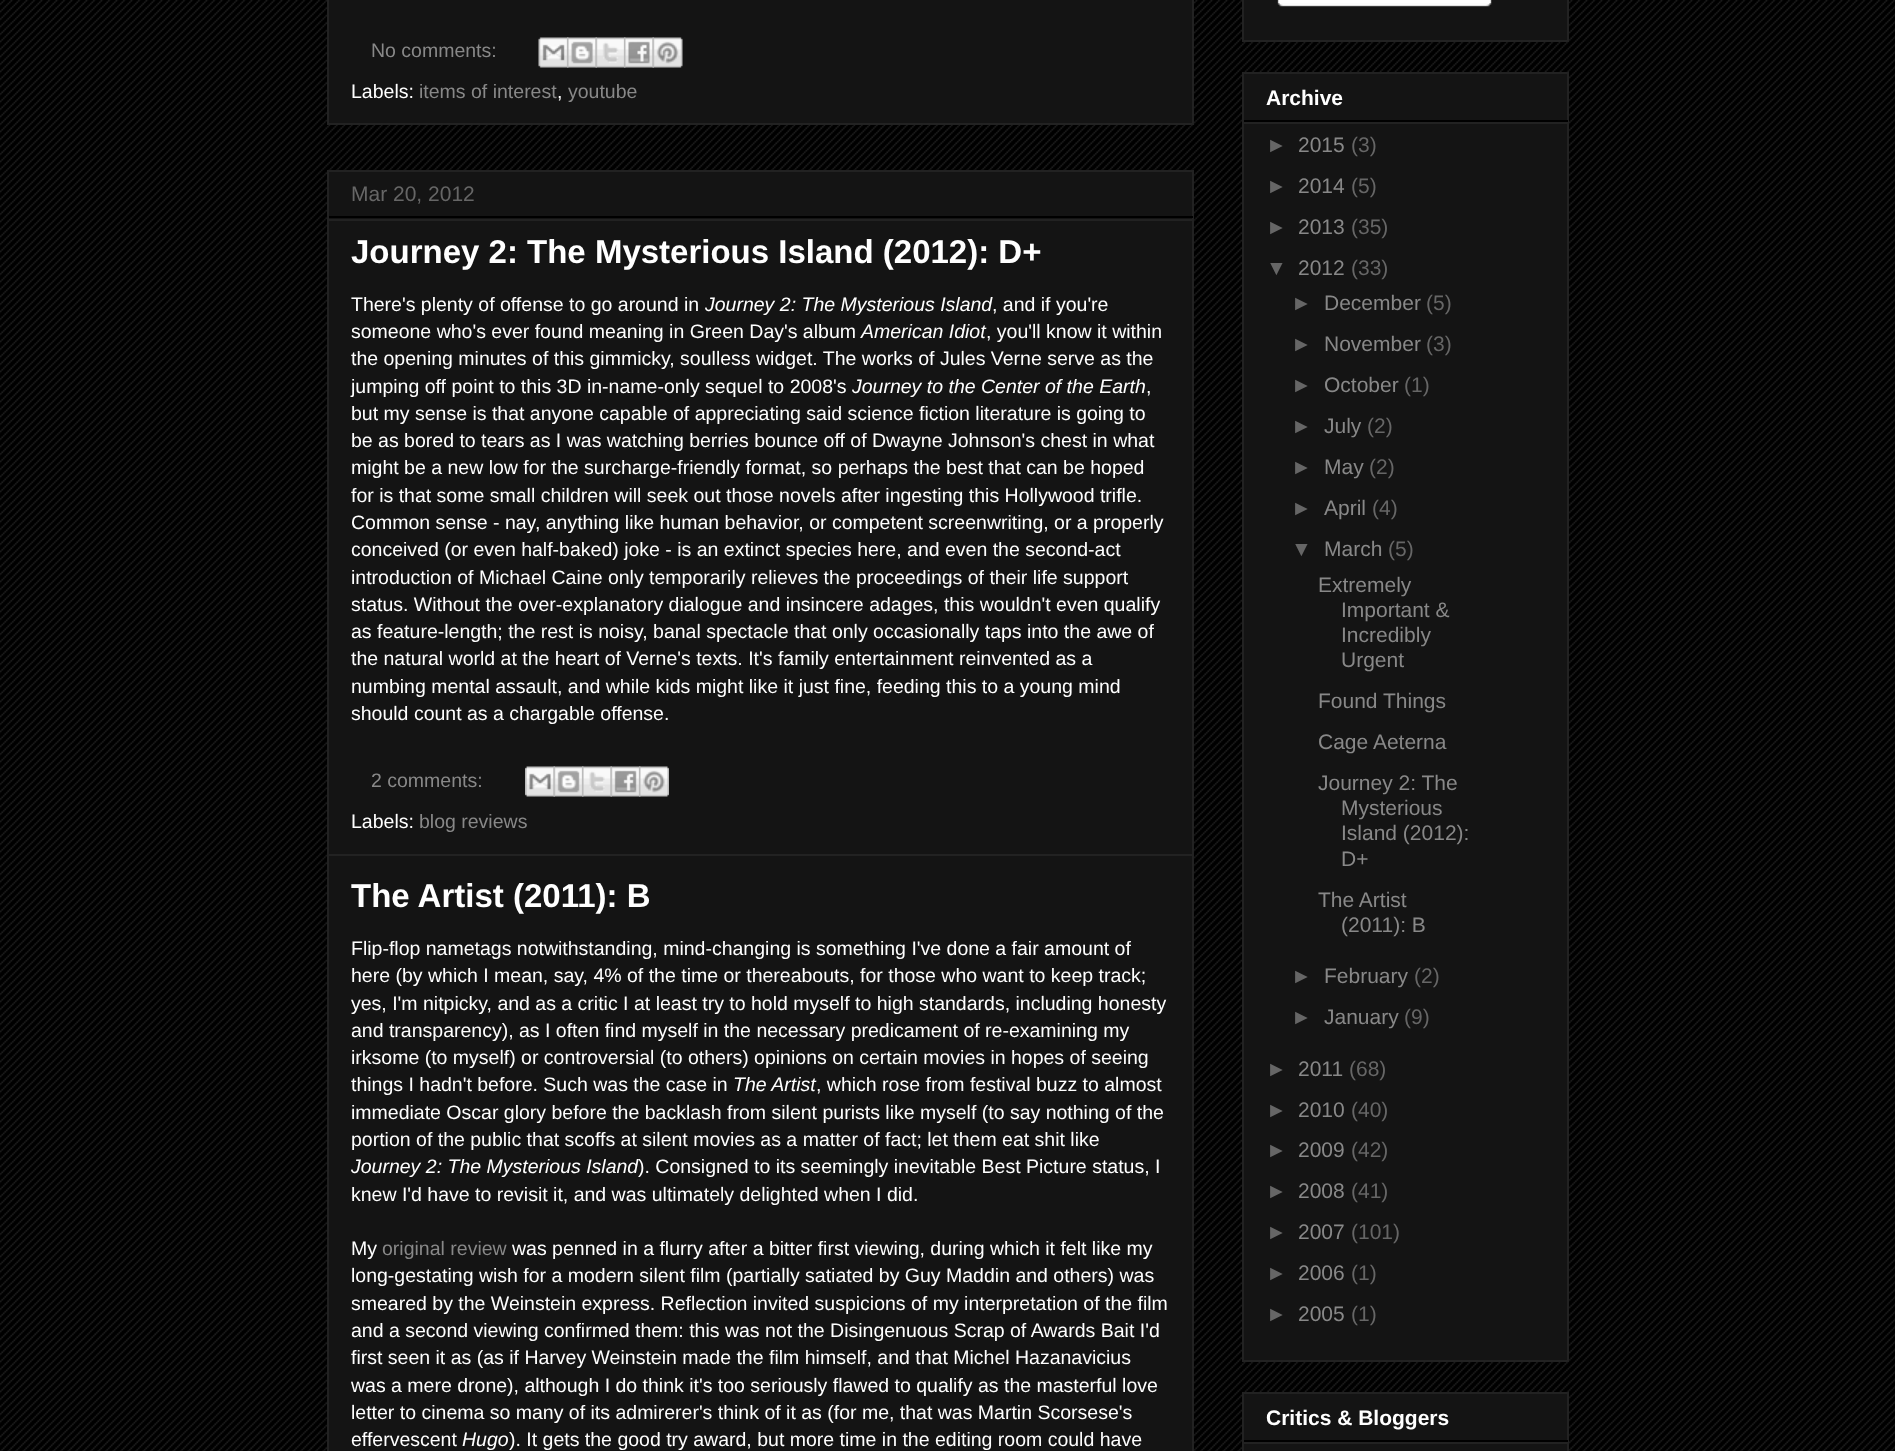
<svg xmlns="http://www.w3.org/2000/svg" width="1895" height="1451">
<style>
.a{font:19.5px Liberation Sans;fill:#888}
.b{font:19.5px Liberation Sans;fill:#fff}
.c{font:21px Liberation Sans;fill:#666}
.d{font:bold 33px Liberation Sans;fill:#fff}
.e{font:italic 19.5px Liberation Sans;fill:#fff}
.f{font:bold 21px Liberation Sans;fill:#fff}
.g{font:21px Liberation Sans;fill:#888}
</style>
<rect width="100%" height="100%" fill="#000"/>
<image href="1.png" x="0" y="0" width="1895" height="1451"/>
<path fill="#141414" stroke="#222" stroke-width="2" d="M328 -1h865v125H328z"/>
<image href="2.png" x="538" y="37" width="31" height="31"/>
<image href="3.png" x="567" y="37" width="30" height="31"/>
<image href="4.png" x="595" y="37" width="31" height="31"/>
<image href="5.png" x="624" y="37" width="30" height="31"/>
<image href="6.png" x="652" y="37" width="31" height="31"/>
<path fill="#141414" stroke="#222" stroke-width="2" d="M328 171h865v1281H328z"/>
<path fill="#000" d="M329 216h864v2H329z"/>
<path fill="#222" d="M329 219h864v2H329z"/>
<image href="7.png" x="525" y="766" width="30" height="31"/>
<image href="8.png" x="553" y="766" width="31" height="31"/>
<image href="9.png" x="582" y="766" width="30" height="31"/>
<image href="10.png" x="610" y="766" width="31" height="31"/>
<image href="11.png" x="639" y="766" width="30" height="31"/>
<path fill="#222" d="M329 854h864v2H329z"/>
<path fill="#141414" stroke="#222" stroke-width="2" d="M1243 -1h325v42H1243z"/>
<image href="12.png" x="1277" y="0" width="215" height="3"/>
<image href="13.png" x="1277" y="3" width="215" height="4"/>
<path fill="#141414" stroke="#222" stroke-width="2" d="M1243 73h325v1288H1243z"/>
<path fill="#000" d="M1244 120h324v2H1244z"/>
<path fill="#222" d="M1244 122h324v2H1244z"/>
<path fill="#141414" stroke="#222" stroke-width="2" d="M1243 1393h325v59H1243z"/>
<path fill="#000" d="M1244 1440h324v2H1244z"/>
<path fill="#222" d="M1244 1442h324v2H1244z"/>
<text class="a" x="371" y="57">No comments:</text>
<text class="b" x="351" y="98">Labels:</text>
<text class="a" x="419" y="98">items of interest</text>
<text class="b" x="557" y="98">,</text>
<text class="a" x="568" y="98">youtube</text>
<text class="c" x="351" y="201">Mar 20, 2012</text>
<text class="d" x="351" y="263">Journey 2: The Mysterious Island (2012): D+</text>
<text class="b" x="351" y="311">There's plenty of offense to go around in</text>
<text class="e" x="705" y="311">Journey 2: The Mysterious Island</text>
<text class="b" x="992" y="311">, and if you're</text>
<text class="b" x="351" y="338">someone who's ever found meaning in Green Day's album</text>
<text class="e" x="861" y="338">American Idiot</text>
<text class="b" x="986" y="338">, you'll know it within</text>
<text class="b" x="351" y="365">the opening minutes of this gimmicky, soulless widget. The works of Jules Verne serve as the</text>
<text class="b" x="351" y="393">jumping off point to this 3D in-name-only sequel to 2008's</text>
<text class="e" x="852" y="393">Journey to the Center of the Earth</text>
<text class="b" x="1146" y="393">,</text>
<text class="b" x="351" y="420">but my sense is that anyone capable of appreciating said science fiction literature is going to</text>
<text class="b" x="351" y="447">be as bored to tears as I was watching berries bounce off of Dwayne Johnson's chest in what</text>
<text class="b" x="351" y="474">might be a new low for the surcharge-friendly format, so perhaps the best that can be hoped</text>
<text class="b" x="351" y="502">for is that some small children will seek out those novels after ingesting this Hollywood trifle.</text>
<text class="b" x="351" y="529">Common sense - nay, anything like human behavior, or competent screenwriting, or a properly</text>
<text class="b" x="351" y="556">conceived (or even half-baked) joke - is an extinct species here, and even the second-act</text>
<text class="b" x="351" y="584">introduction of Michael Caine only temporarily relieves the proceedings of their life support</text>
<text class="b" x="351" y="611">status. Without the over-explanatory dialogue and insincere adages, this wouldn't even qualify</text>
<text class="b" x="351" y="638">as feature-length; the rest is noisy, banal spectacle that only occasionally taps into the awe of</text>
<text class="b" x="351" y="665">the natural world at the heart of Verne's texts. It's family entertainment reinvented as a</text>
<text class="b" x="351" y="693">numbing mental assault, and while kids might like it just fine, feeding this to a young mind</text>
<text class="b" x="351" y="720">should count as a chargable offense.</text>
<text class="a" x="371" y="787">2 comments:</text>
<text class="b" x="351" y="828">Labels:</text>
<text class="a" x="419" y="828">blog reviews</text>
<text class="d" x="351" y="907">The Artist (2011): B</text>
<text class="b" x="351" y="955">Flip-flop nametags notwithstanding, mind-changing is something I've done a fair amount of</text>
<text class="b" x="351" y="982">here (by which I mean, say, 4% of the time or thereabouts, for those who want to keep track;</text>
<text class="b" x="351" y="1010">yes, I'm nitpicky, and as a critic I at least try to hold myself to high standards, including honesty</text>
<text class="b" x="351" y="1037">and transparency), as I often find myself in the necessary predicament of re-examining my</text>
<text class="b" x="351" y="1064">irksome (to myself) or controversial (to others) opinions on certain movies in hopes of seeing</text>
<text class="b" x="351" y="1091">things I hadn't before. Such was the case in</text>
<text class="e" x="733" y="1091">The Artist</text>
<text class="b" x="816" y="1091">, which rose from festival buzz to almost</text>
<text class="b" x="351" y="1119">immediate Oscar glory before the backlash from silent purists like myself (to say nothing of the</text>
<text class="b" x="351" y="1146">portion of the public that scoffs at silent movies as a matter of fact; let them eat shit like</text>
<text class="e" x="351" y="1173">Journey 2: The Mysterious Island</text>
<text class="b" x="638" y="1173">). Consigned to its seemingly inevitable Best Picture status, I</text>
<text class="b" x="351" y="1201">knew I'd have to revisit it, and was ultimately delighted when I did.</text>
<text class="b" x="351" y="1255">My</text>
<text class="a" x="382" y="1255">original review</text>
<text class="b" x="512" y="1255">was penned in a flurry after a bitter first viewing, during which it felt like my</text>
<text class="b" x="351" y="1282">long-gestating wish for a modern silent film (partially satiated by Guy Maddin and others) was</text>
<text class="b" x="351" y="1310">smeared by the Weinstein express. Reflection invited suspicions of my interpretation of the film</text>
<text class="b" x="351" y="1337">and a second viewing confirmed them: this was not the Disingenuous Scrap of Awards Bait I'd</text>
<text class="b" x="351" y="1364">first seen it as (as if Harvey Weinstein made the film himself, and that Michel Hazanavicius</text>
<text class="b" x="351" y="1392">was a mere drone), although I do think it's too seriously flawed to qualify as the masterful love</text>
<text class="b" x="351" y="1419">letter to cinema so many of its admirerer's think of it as (for me, that was Martin Scorsese's</text>
<text class="b" x="351" y="1446">effervescent</text>
<text class="e" x="462" y="1446">Hugo</text>
<text class="b" x="509" y="1446">). It gets the good try award, but more time in the editing room could have</text>
<text class="f" x="1266" y="105">Archive</text>
<text class="c" x="1266" y="152">►</text>
<text class="g" x="1298" y="152">2015</text>
<text class="c" x="1351" y="152">(3)</text>
<text class="c" x="1266" y="193">►</text>
<text class="g" x="1298" y="193">2014</text>
<text class="c" x="1351" y="193">(5)</text>
<text class="c" x="1266" y="234">►</text>
<text class="g" x="1298" y="234">2013</text>
<text class="c" x="1351" y="234">(35)</text>
<text class="c" x="1266" y="275">▼</text>
<text class="g" x="1298" y="275">2012</text>
<text class="c" x="1351" y="275">(33)</text>
<text class="c" x="1291" y="310">►</text>
<text class="g" x="1324" y="310">December</text>
<text class="c" x="1426" y="310">(5)</text>
<text class="c" x="1291" y="351">►</text>
<text class="g" x="1324" y="351">November</text>
<text class="c" x="1426" y="351">(3)</text>
<text class="c" x="1291" y="392">►</text>
<text class="g" x="1324" y="392">October</text>
<text class="c" x="1404" y="392">(1)</text>
<text class="c" x="1291" y="433">►</text>
<text class="g" x="1324" y="433">July</text>
<text class="c" x="1367" y="433">(2)</text>
<text class="c" x="1291" y="474">►</text>
<text class="g" x="1324" y="474">May</text>
<text class="c" x="1369" y="474">(2)</text>
<text class="c" x="1291" y="515">►</text>
<text class="g" x="1324" y="515">April</text>
<text class="c" x="1372" y="515">(4)</text>
<text class="c" x="1291" y="556">▼</text>
<text class="g" x="1324" y="556">March</text>
<text class="c" x="1388" y="556">(5)</text>
<text class="g" x="1318" y="592">Extremely</text>
<text class="g" x="1341" y="617">Important &amp;</text>
<text class="g" x="1341" y="642">Incredibly</text>
<text class="g" x="1341" y="667">Urgent</text>
<text class="g" x="1318" y="708">Found Things</text>
<text class="g" x="1318" y="749">Cage Aeterna</text>
<text class="g" x="1318" y="790">Journey 2: The</text>
<text class="g" x="1341" y="815">Mysterious</text>
<text class="g" x="1341" y="840">Island (2012):</text>
<text class="g" x="1341" y="866">D+</text>
<text class="g" x="1318" y="907">The Artist</text>
<text class="g" x="1341" y="932">(2011): B</text>
<text class="c" x="1291" y="983">►</text>
<text class="g" x="1324" y="983">February</text>
<text class="c" x="1414" y="983">(2)</text>
<text class="c" x="1291" y="1024">►</text>
<text class="g" x="1324" y="1024">January</text>
<text class="c" x="1404" y="1024">(9)</text>
<text class="c" x="1266" y="1076">►</text>
<text class="g" x="1298" y="1076">2011</text>
<text class="c" x="1349" y="1076">(68)</text>
<text class="c" x="1266" y="1117">►</text>
<text class="g" x="1298" y="1117">2010</text>
<text class="c" x="1351" y="1117">(40)</text>
<text class="c" x="1266" y="1157">►</text>
<text class="g" x="1298" y="1157">2009</text>
<text class="c" x="1351" y="1157">(42)</text>
<text class="c" x="1266" y="1198">►</text>
<text class="g" x="1298" y="1198">2008</text>
<text class="c" x="1351" y="1198">(41)</text>
<text class="c" x="1266" y="1239">►</text>
<text class="g" x="1298" y="1239">2007</text>
<text class="c" x="1351" y="1239">(101)</text>
<text class="c" x="1266" y="1280">►</text>
<text class="g" x="1298" y="1280">2006</text>
<text class="c" x="1351" y="1280">(1)</text>
<text class="c" x="1266" y="1321">►</text>
<text class="g" x="1298" y="1321">2005</text>
<text class="c" x="1351" y="1321">(1)</text>
<text class="f" x="1266" y="1425">Critics &amp; Bloggers</text>
</svg>
